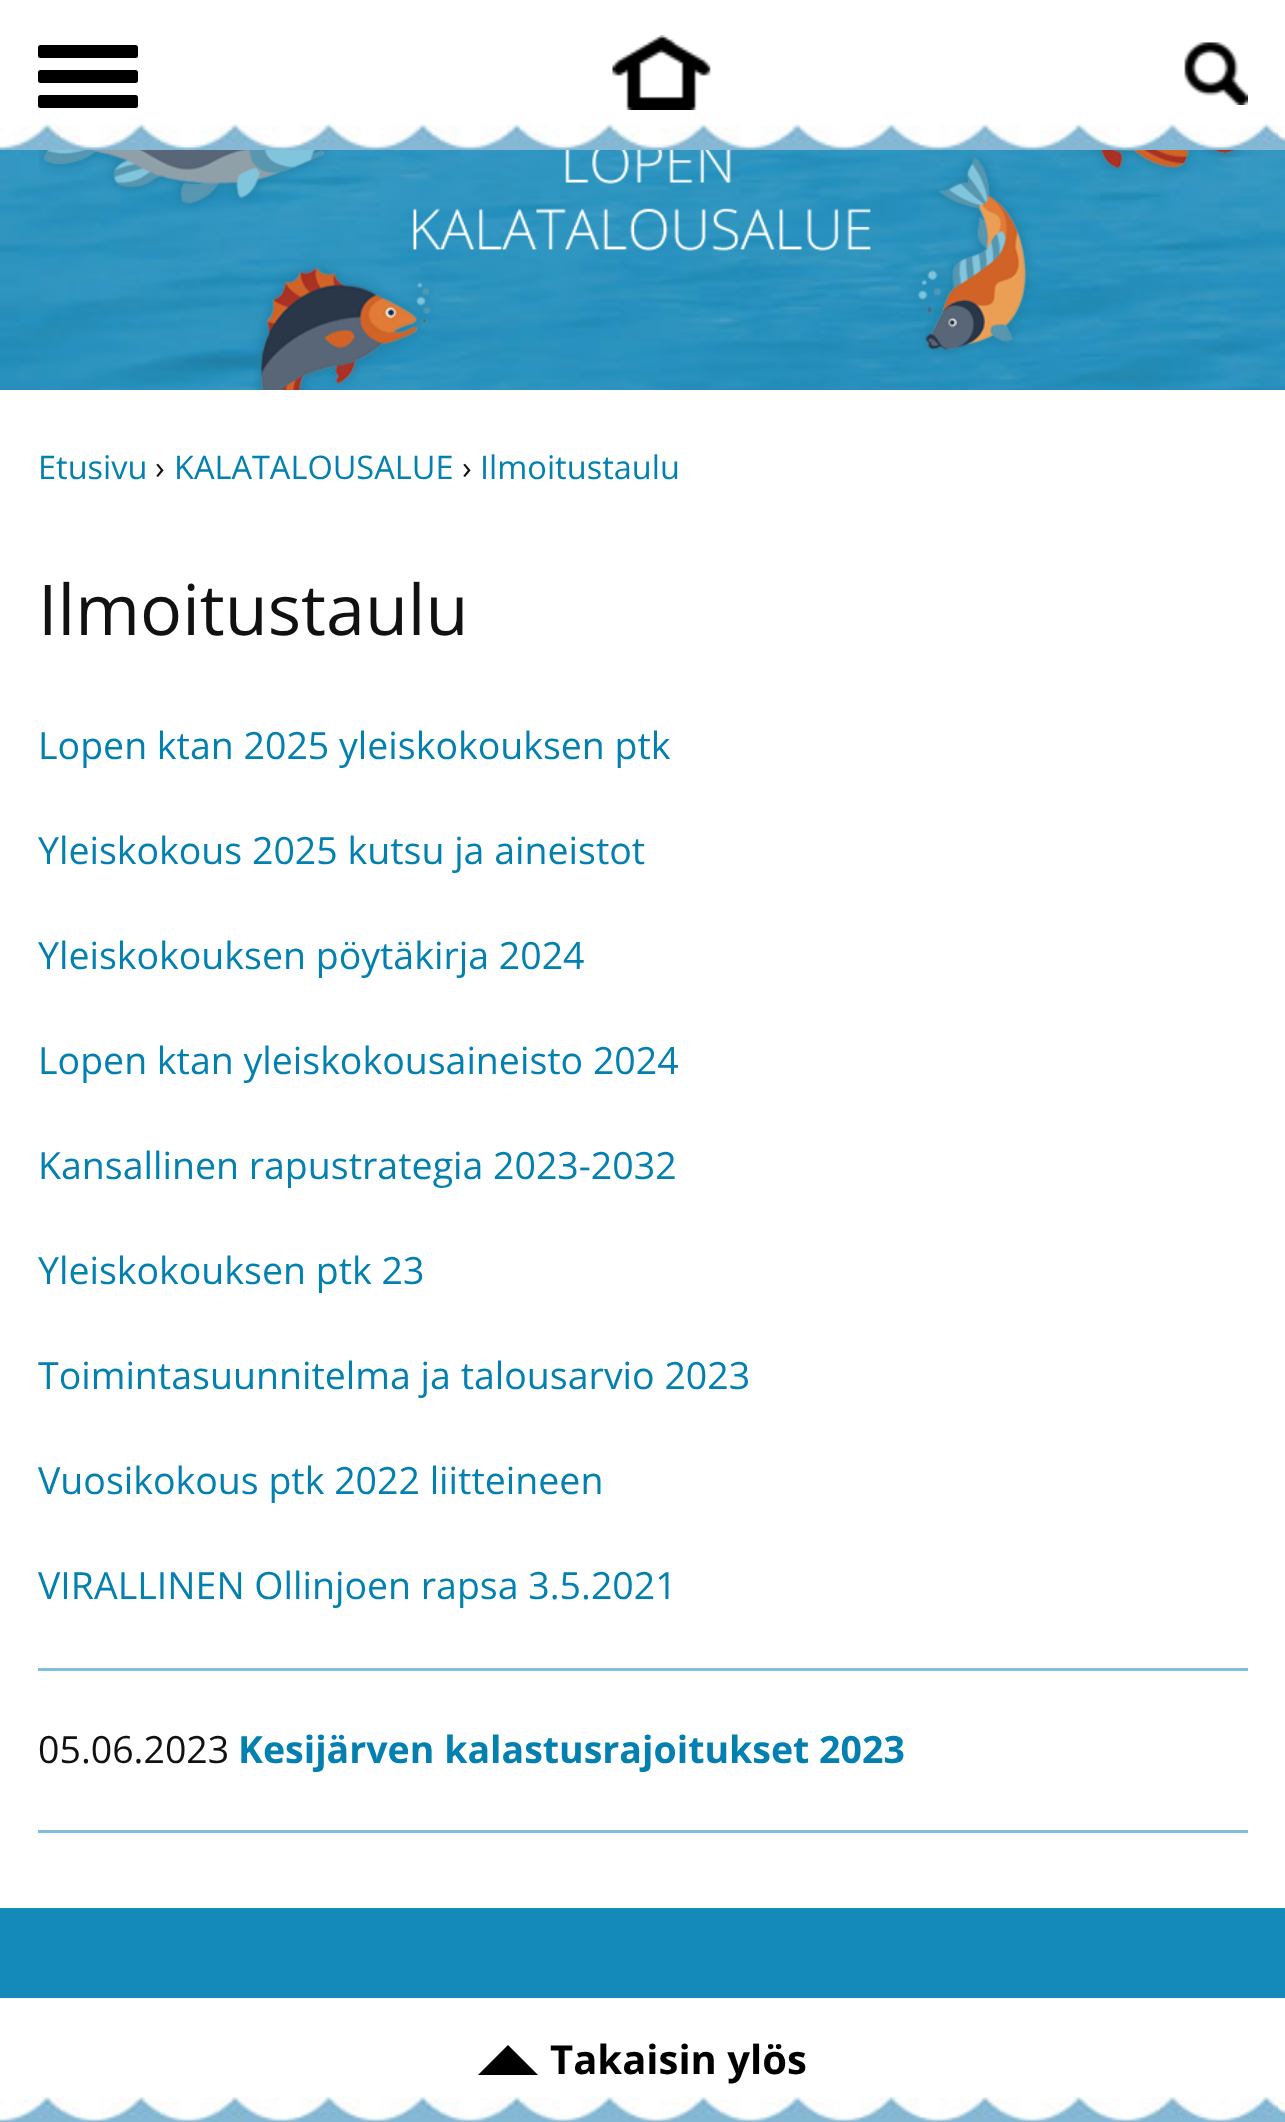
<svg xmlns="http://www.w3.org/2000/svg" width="1285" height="2122">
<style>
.a{font:32.5px Open Sans;fill:#0480b0}
.b{font:32.5px Open Sans;fill:#111}
.c{font:70px Open Sans;fill:#111}
.d{font:37.5px Open Sans;fill:#0480b0}
.e{font:37.5px Open Sans;fill:#111}
.f{font:bold 37.5px Open Sans;fill:#0480b0}
.g{font:bold 40px Open Sans;fill:#000}
</style>
<rect width="100%" height="100%" fill="#138aba"/>
<image href="1.png" x="0" y="150" width="1285" height="240"/>
<image href="2.png" x="39" y="150" width="1206" height="240"/>
<path fill="#fff" d="M0 390h1285v1518H0z"/>
<path fill="#81bedd" d="M38 1668h1210v3H38z"/>
<path fill="#81bedd" d="M38 1830h1210v3H38z"/>
<path fill="#fff" d="M0 0h1285v126H0z"/>
<image href="3.png" x="0" y="124" width="1285" height="26"/>
<rect fill="#000" x="38" y="45" width="100" height="13" rx="2.5"/>
<rect fill="#000" x="38" y="70" width="100" height="13" rx="2.5"/>
<rect fill="#000" x="38" y="95" width="100" height="13" rx="2.5"/>
<image href="4.png" x="612" y="35" width="99" height="75"/>
<image href="5.png" x="1184" y="42" width="64" height="63"/>
<path fill="#fff" d="M0 1998h1285v101H0z"/>
<image href="6.png" x="0" y="2097" width="1285" height="25"/>
<path fill="#000" d="M538 2075h-60l30-30z"/>
<text class="a" x="38" y="479">Etusivu</text>
<text class="b" x="155" y="479">›</text>
<text class="a" x="174" y="479">KALATALOUSALUE</text>
<text class="b" x="462" y="479">›</text>
<text class="a" x="480" y="479">Ilmoitustaulu</text>
<text class="c" x="38" y="635">Ilmoitustaulu</text>
<text class="d" x="38" y="759">Lopen ktan 2025 yleiskokouksen ptk</text>
<text class="d" x="38" y="864">Yleiskokous 2025 kutsu ja aineistot</text>
<text class="d" x="38" y="969">Yleiskokouksen pöytäkirja 2024</text>
<text class="d" x="38" y="1074">Lopen ktan yleiskokousaineisto 2024</text>
<text class="d" x="38" y="1179">Kansallinen rapustrategia 2023-2032</text>
<text class="d" x="38" y="1284">Yleiskokouksen ptk 23</text>
<text class="d" x="38" y="1389">Toimintasuunnitelma ja talousarvio 2023</text>
<text class="d" x="38" y="1494">Vuosikokous ptk 2022 liitteineen</text>
<text class="d" x="38" y="1599">VIRALLINEN Ollinjoen rapsa 3.5.2021</text>
<text class="e" x="38" y="1763">05.06.2023</text>
<text class="f" x="238" y="1763">Kesijärven kalastusrajoitukset 2023</text>
<text class="g" x="550" y="2074">Takaisin ylös</text>
</svg>
